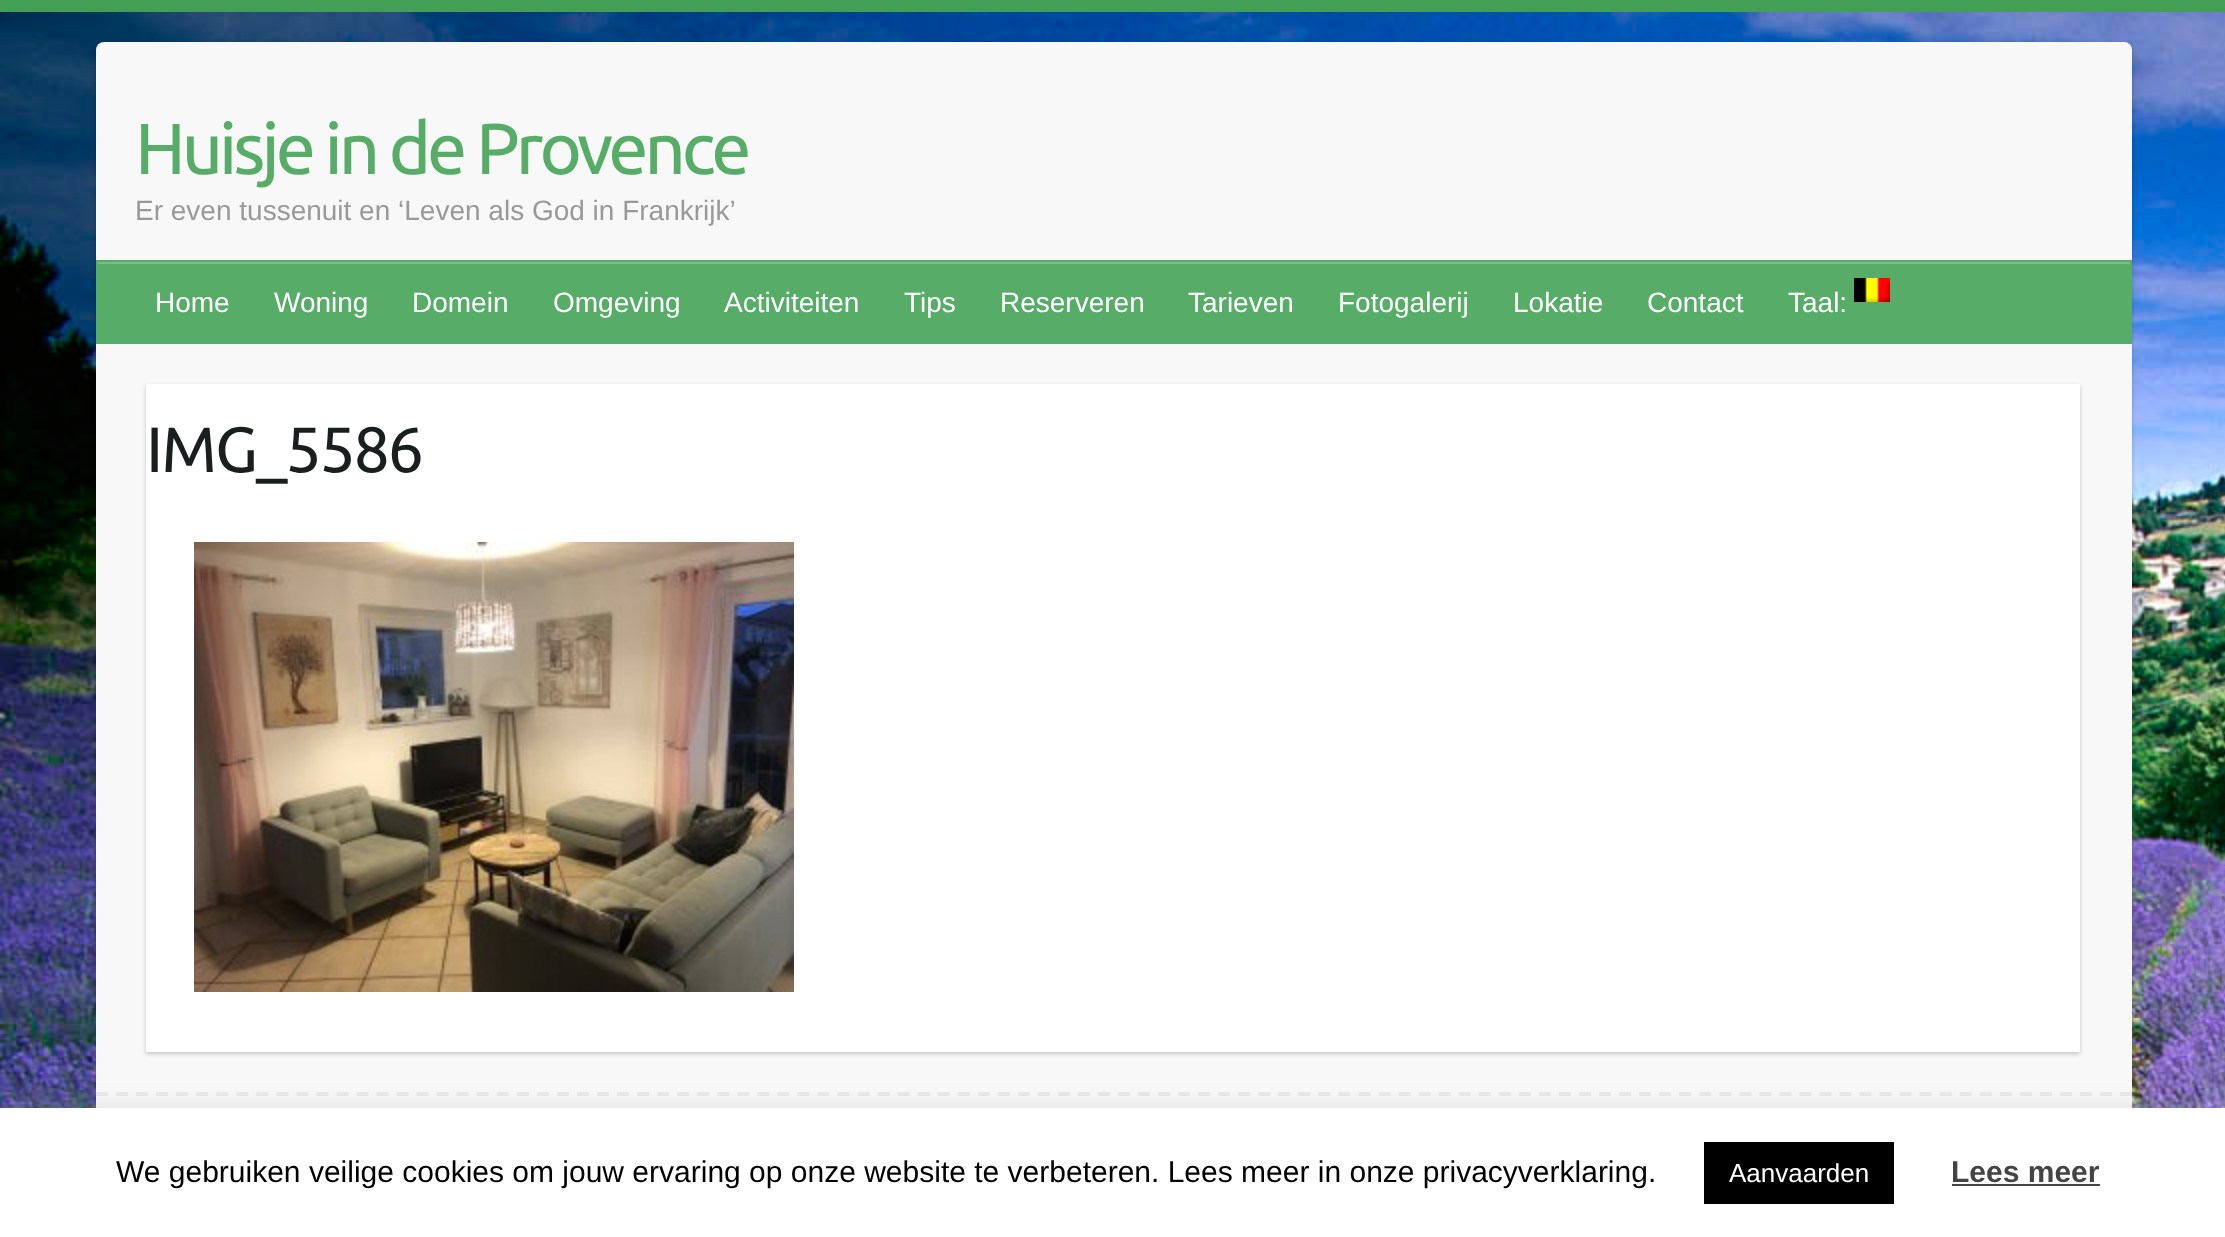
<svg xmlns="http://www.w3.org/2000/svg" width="2225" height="1237">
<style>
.a{font:72px Ubuntu;letter-spacing:-4px;fill:#57ad68}
.b{font:28px Liberation Sans;fill:#999}
.c{font:28px Liberation Sans;fill:#fff}
.d{font:64px Ubuntu;letter-spacing:-2px;fill:#1b1e1f}
.e{font:30px Liberation Sans;fill:#000}
.f{font:26px Liberation Sans;fill:#fff}
.g{font:bold 30px Liberation Sans;fill:#444}
</style>
<rect width="100%" height="100%" fill="#fff"/>
<image href="1.png" x="0" y="12" width="2225" height="1096"/>
<path fill="#439f55" d="M0 0h2225v12H0z"/>
<rect fill="#00000033" filter="blur(2px)" x="96" y="44" width="2036" height="1192" rx="8"/>
<rect fill="#f8f8f8" x="96" y="42" width="2036" height="1192" rx="8"/>
<path fill="#57ad68" d="M96 260h2036v84H96z"/>
<path fill="#79bd86" d="M98 262h2032v2H98z"/>
<image href="2.png" x="1854" y="278" width="36" height="24"/>
<path fill="#00000033" filter="blur(2px)" d="M146 386h1934v668H146z"/>
<path fill="#fff" d="M146 384h1934v668H146z"/>
<image href="3.png" x="194" y="542" width="600" height="450"/>
<path fill="none" stroke="#eaeaea" stroke-width="4" stroke-dasharray="12 8.04" d="M96 1094h2036"/>
<path fill="#acabab4d" filter="blur(10px)" d="M0 1106h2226v130H0z"/>
<path fill="#fff" d="M0 1108h2225v129H0z"/>
<path fill="#000" d="M1704 1142h190v62H1704z"/>
<path fill="#444" d="M1952 1184h148v2H1952z"/>
<text class="a" x="135" y="174">Huisje in de Provence</text>
<text class="b" x="135" y="220">Er even tussenuit en ‘Leven als God in Frankrijk’</text>
<text class="c" x="155" y="312">Home</text>
<text class="c" x="274" y="312">Woning</text>
<text class="c" x="412" y="312">Domein</text>
<text class="c" x="553" y="312">Omgeving</text>
<text class="c" x="724" y="312">Activiteiten</text>
<text class="c" x="904" y="312">Tips</text>
<text class="c" x="1000" y="312">Reserveren</text>
<text class="c" x="1188" y="312">Tarieven</text>
<text class="c" x="1338" y="312">Fotogalerij</text>
<text class="c" x="1513" y="312">Lokatie</text>
<text class="c" x="1647" y="312">Contact</text>
<text class="c" x="1788" y="312">Taal:</text>
<text class="d" x="146" y="472">IMG_5586</text>
<text class="e" x="116" y="1182">We gebruiken veilige cookies om jouw ervaring op onze website te verbeteren. Lees meer in onze privacyverklaring.</text>
<text class="f" x="1729" y="1182">Aanvaarden</text>
<text class="g" x="1951" y="1182">Lees meer</text>
</svg>
